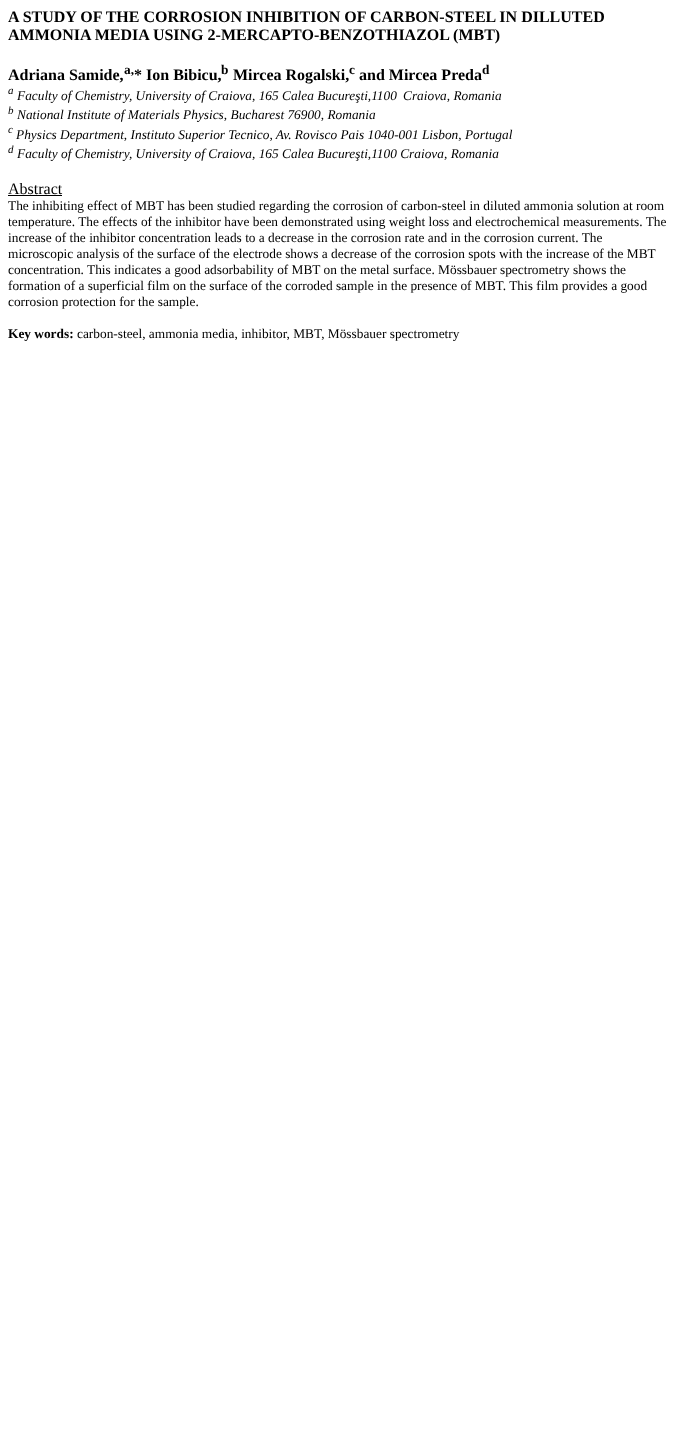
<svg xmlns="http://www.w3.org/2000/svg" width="677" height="1441">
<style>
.a{font:bold 16px Liberation Serif;fill:#000}
.b{font:bold 13.35px Liberation Serif;fill:#000}
.c{font:italic 11px Liberation Serif;fill:#000}
.d{font:italic 13.35px Liberation Serif;fill:#000}
.e{font:16px Liberation Serif;fill:#000}
.f{font:13.35px Liberation Serif;fill:#000}
</style>
<rect width="100%" height="100%" fill="#fff"/>
<path fill="#000" d="M8 195h54v1H8z"/>
<text class="a" x="8" y="22">A STUDY OF THE CORROSION INHIBITION OF CARBON-STEEL IN DILLUTED</text>
<text class="a" x="8" y="40">AMMONIA MEDIA USING 2-MERCAPTO-BENZOTHIAZOL (MBT)</text>
<text class="a" x="8" y="80">Adriana Samide,</text>
<text class="b" x="124" y="74">a,</text>
<text class="a" x="134" y="80">* Ion Bibicu,</text>
<text class="b" x="221" y="74">b</text>
<text class="a" x="233" y="80">Mircea Rogalski,</text>
<text class="b" x="349" y="74">c</text>
<text class="a" x="359" y="80">and Mircea Preda</text>
<text class="b" x="482" y="74">d</text>
<text class="c" x="8" y="94">a</text>
<text class="d" x="17" y="100">Faculty of Chemistry, University of Craiova, 165 Calea Bucureşti,1100</text>
<text class="d" x="403" y="100">Craiova, Romania</text>
<text class="c" x="8" y="114">b</text>
<text class="d" x="17" y="119">National Institute of Materials Physics, Bucharest 76900, Romania</text>
<text class="c" x="8" y="133">c</text>
<text class="d" x="16" y="139">Physics Department, Instituto Superior Tecnico, Av. Rovisco Pais 1040-001 Lisbon, Portugal</text>
<text class="c" x="8" y="153">d</text>
<text class="d" x="17" y="158">Faculty of Chemistry, University of Craiova, 165 Calea Bucureşti,1100 Craiova, Romania</text>
<text class="e" x="8" y="194">Abstract</text>
<text class="f" x="8" y="210">The inhibiting effect of MBT has been studied regarding the corrosion of carbon-steel in diluted ammonia solution at room</text>
<text class="f" x="8" y="226">temperature. The effects of the inhibitor have been demonstrated using weight loss and electrochemical measurements. The</text>
<text class="f" x="8" y="242">increase of the inhibitor concentration leads to a decrease in the corrosion rate and in the corrosion current. The</text>
<text class="f" x="8" y="258">microscopic analysis of the surface of the electrode shows a decrease of the corrosion spots with the increase of the MBT</text>
<text class="f" x="8" y="274">concentration. This indicates a good adsorbability of MBT on the metal surface. Mössbauer spectrometry shows the</text>
<text class="f" x="8" y="290">formation of a superficial film on the surface of the corroded sample in the presence of MBT. This film provides a good</text>
<text class="f" x="8" y="306">corrosion protection for the sample.</text>
<text class="b" x="8" y="338">Key words:</text>
<text class="f" x="77" y="338">carbon-steel, ammonia media, inhibitor, MBT, Mössbauer spectrometry</text>
</svg>
